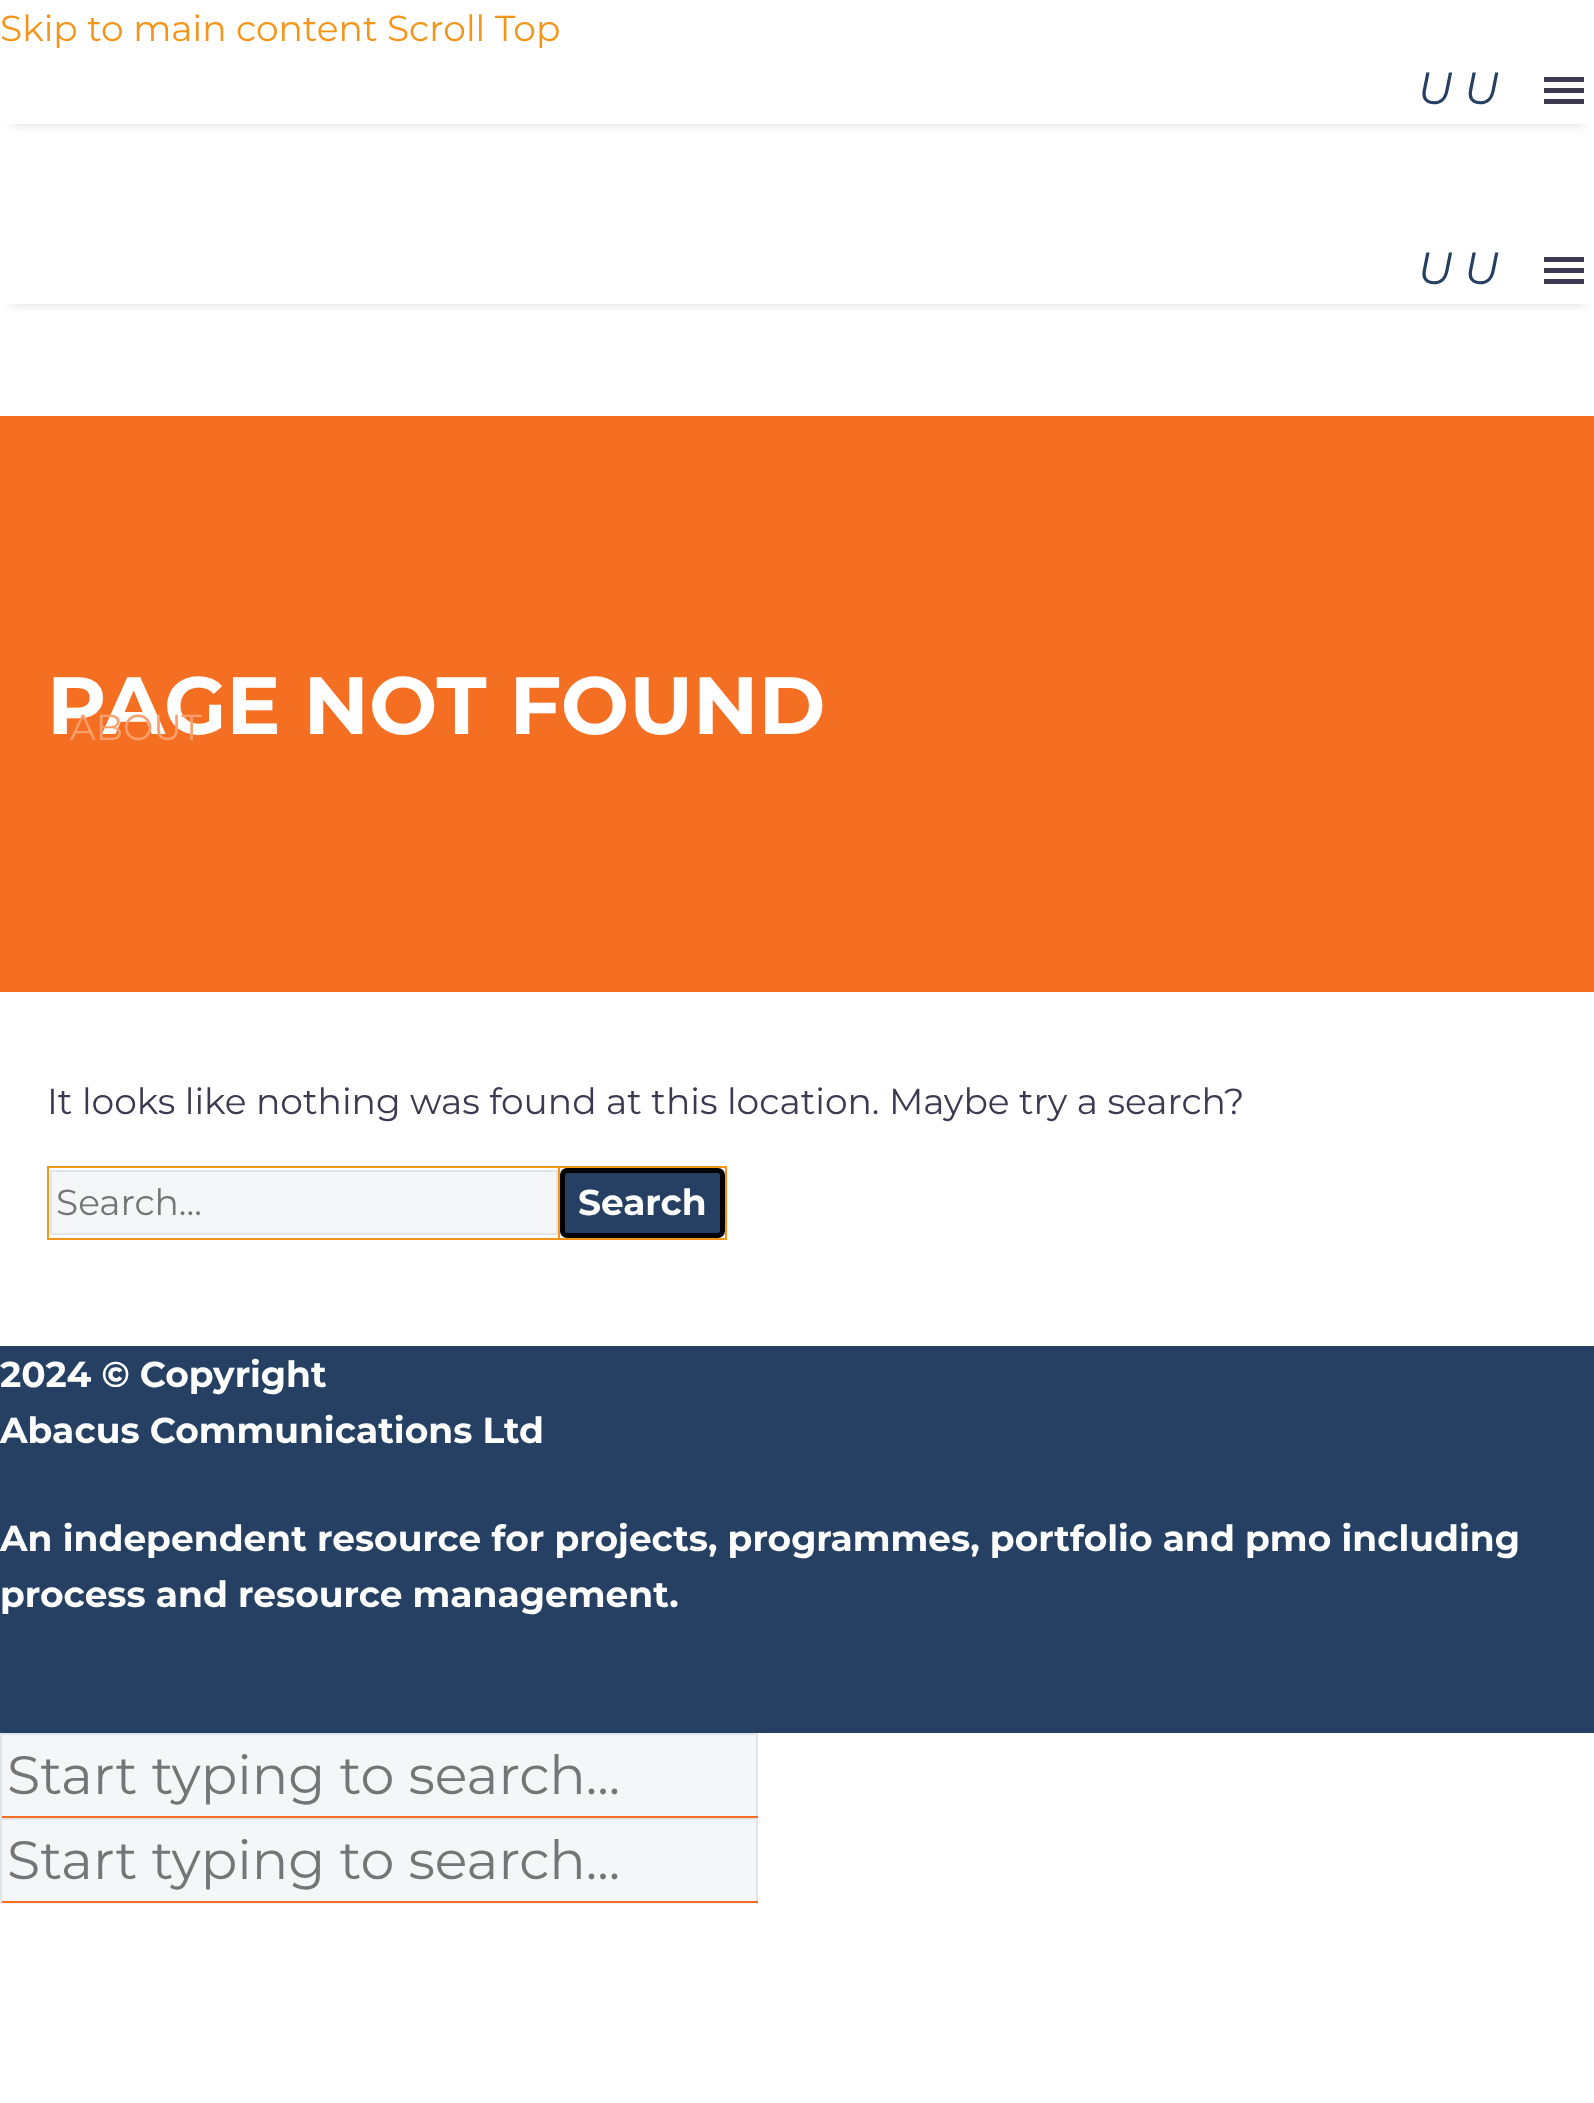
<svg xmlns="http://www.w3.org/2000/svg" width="1594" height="2103">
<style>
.a{font:36px Montserrat;fill:#f4951a}
.b{font:italic 45px Montserrat;fill:#254063}
.c{font:bold 81px Montserrat;fill:#fff}
.d{font:36px Montserrat;fill:#f8a06d}
.e{font:36px Montserrat;fill:#3c3950}
.f{font:36px Montserrat;fill:#757575}
.g{font:bold 36px Montserrat;fill:#fff}
.h{font:54px Montserrat;fill:#757575}
</style>
<defs>
<clipPath id="clip1"><path d="M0 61h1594v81h-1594zm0-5h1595v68h-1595z" clip-rule="evenodd"/></clipPath>
<clipPath id="clip2"><path d="M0 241h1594v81h-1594zm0-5h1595v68h-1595z" clip-rule="evenodd"/></clipPath>
</defs>
<rect width="100%" height="100%" fill="#fff"/>
<g clip-path="url(#clip1)">
<path fill="#00000026" filter="blur(5.5px)" d="M11 79h1573v45H11z"/>
</g>
<path fill="#3c3950" d="M1544 77h40v5H1544z"/>
<path fill="#3c3950" d="M1544 88h40v5H1544z"/>
<path fill="#3c3950" d="M1544 99h40v5H1544z"/>
<g clip-path="url(#clip2)">
<path fill="#00000026" filter="blur(5.5px)" d="M11 259h1573v45H11z"/>
</g>
<path fill="#3c3950" d="M1544 257h40v5H1544z"/>
<path fill="#3c3950" d="M1544 268h40v5H1544z"/>
<path fill="#3c3950" d="M1544 279h40v5H1544z"/>
<path fill="#f56f23" d="M0 416h1594v576H0z"/>
<path fill="#f4951a" d="M558 1166h169v2H558z"/>
<path fill="#f4951a" d="M725 1166h2v74H725z"/>
<path fill="#f4951a" d="M558 1238h169v2H558z"/>
<path fill="#f4951a" d="M558 1166h2v74H558z"/>
<path fill="#f4951a" d="M47 1166h513v2H47z"/>
<path fill="#f4951a" d="M47 1238h513v2H47z"/>
<path fill="#f4951a" d="M47 1166h2v74H47z"/>
<path fill="#f4f6f7" stroke="#dfe5e8" stroke-width="2" d="M51 1171h506v63H51z"/>
<rect fill="#254063" stroke="#000" stroke-width="5" x="562.5" y="1170.5" width="160" height="65" rx="4.5"/>
<path fill="#254063" d="M0 1346h1594v387H0z"/>
<path fill="#f4f6f7" d="M2 1735h754v81H2z"/>
<path fill="#dfe5e8" d="M0 1733h758v2H0z"/>
<path fill="#dfe5e8" d="M756 1733h2v85H756z"/>
<path fill="#f56f23" d="M0 1816h758v2H0z"/>
<path fill="#dfe5e8" d="M0 1733h2v85H0z"/>
<path fill="#f4f6f7" d="M2 1820h754v84H2z"/>
<path fill="#dfe5e8" d="M0 1818h758v2H0z"/>
<path fill="#dfe5e8" d="M756 1818h2v86H756z"/>
<path fill="#f56f23" d="M0 1901h758v2H0z"/>
<path fill="#dfe5e8" d="M0 1818h2v86H0z"/>
<text class="a" x="0" y="41">Skip to main content Scroll Top</text>
<text class="b" x="1418" y="104">U U</text>
<text class="b" x="1418" y="284">U U</text>
<text class="c" x="47" y="734">PAGE NOT FOUND</text>
<text class="d" x="70" y="740">ABOUT</text>
<text class="e" x="47" y="1114">It looks like nothing was found at this location. Maybe try a search?</text>
<text class="f" x="56" y="1215">Search...</text>
<text class="g" x="578" y="1215">Search</text>
<text class="g" x="0" y="1387">2024 © Copyright</text>
<text class="g" x="0" y="1443">Abacus Communications Ltd</text>
<text class="g" x="0" y="1551">An independent resource for projects, programmes, portfolio and pmo including</text>
<text class="g" x="0" y="1607">process and resource management.</text>
<text class="h" x="7" y="1794">Start typing to search...</text>
<text class="h" x="7" y="1879">Start typing to search...</text>
</svg>
